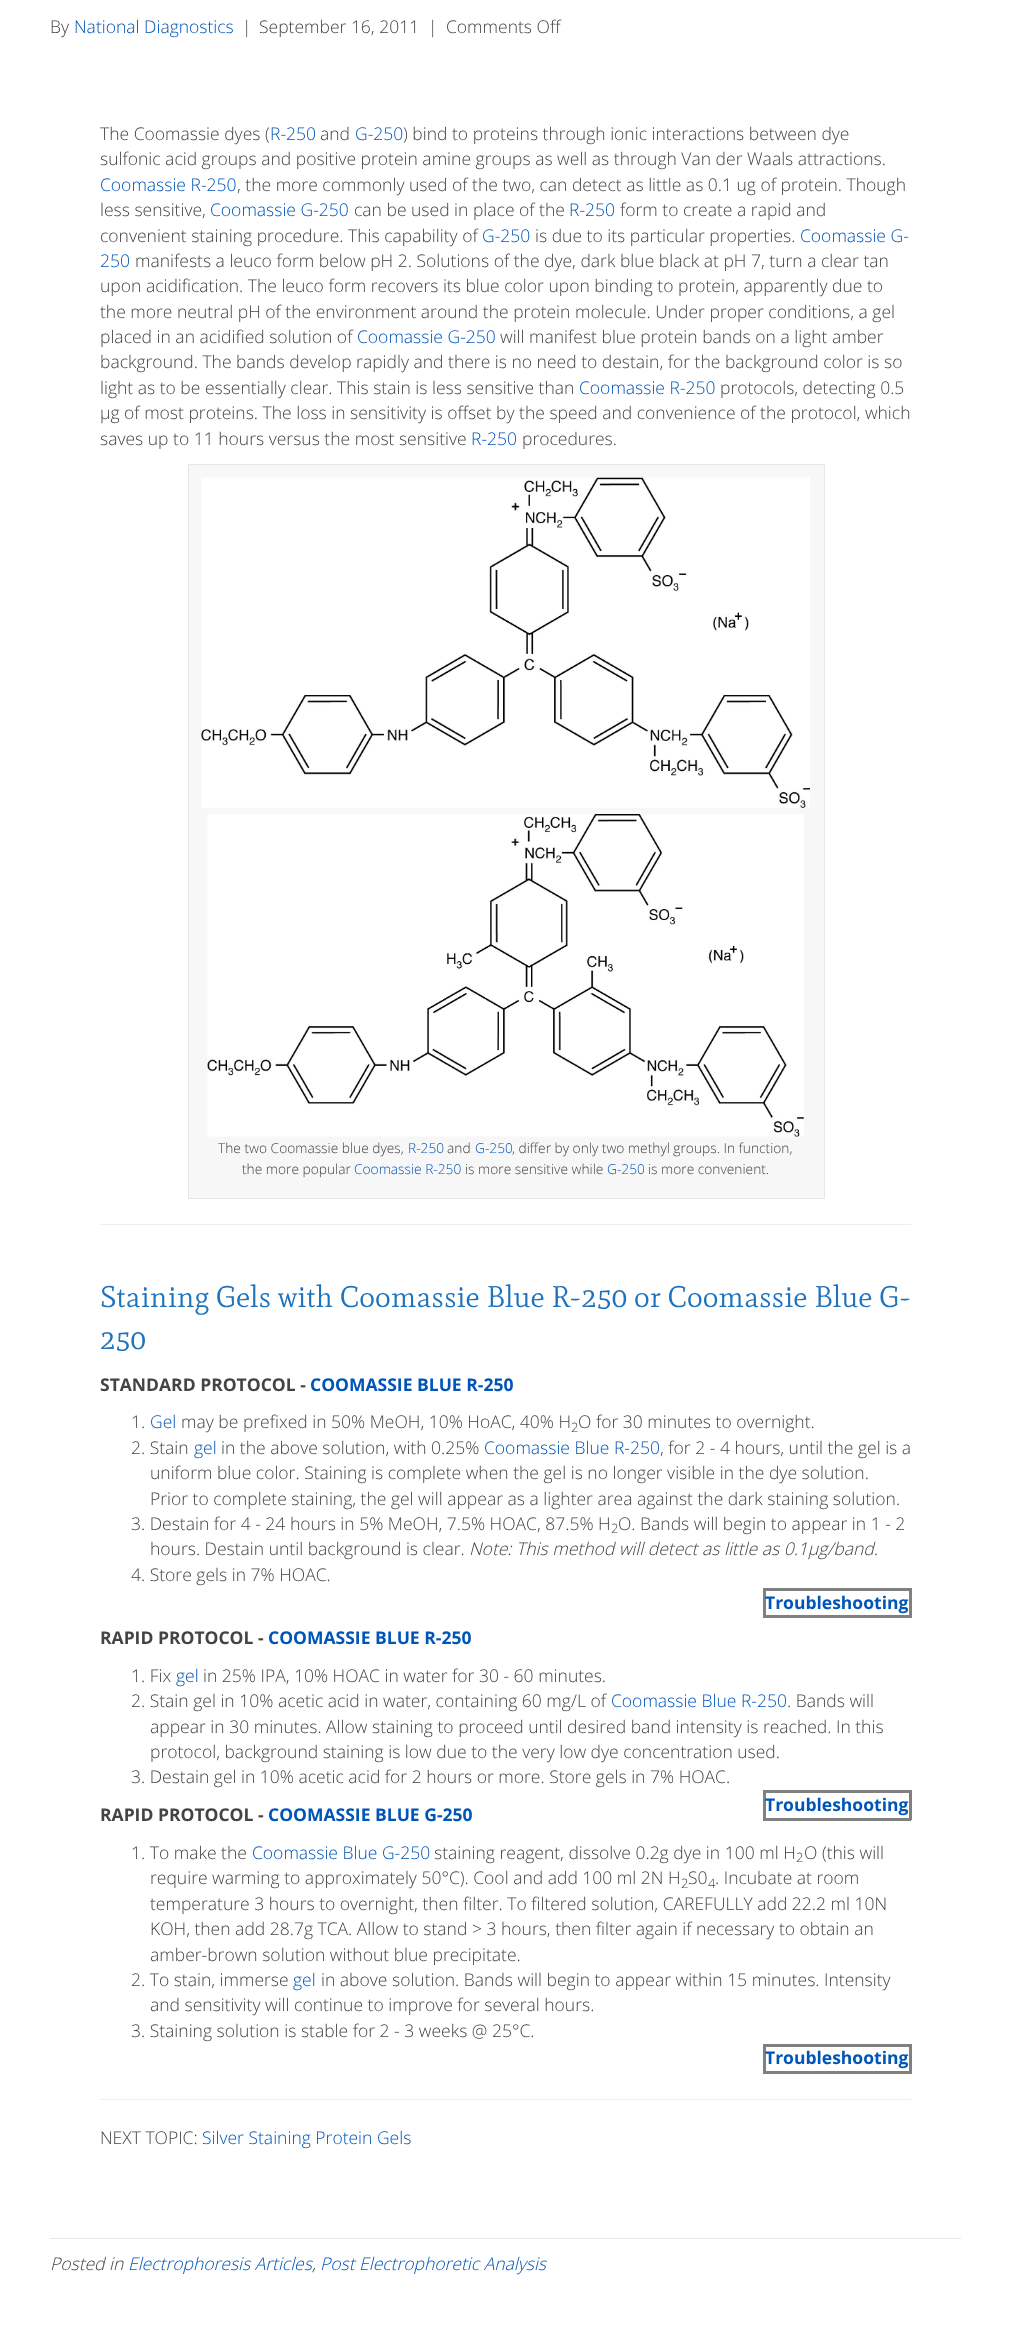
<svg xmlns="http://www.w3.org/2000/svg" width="1011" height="2326">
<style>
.a{font:300 17.5px Open Sans;fill:#444}
.b{font:300 17.5px Open Sans;fill:#0055b8}
.c{font:300 13.75px Open Sans;fill:#444}
.d{font:300 13.75px Open Sans;fill:#0055b8}
.e{font:30px Mate;fill:#1e73be}
.f{font:bold 17.5px Open Sans;fill:#444}
.g{font:bold 17.5px Open Sans;fill:#0055b8}
.h{font:300 13px Open Sans;fill:#444}
.i{font:italic 300 17.5px Open Sans;fill:#444}
.j{font:italic 300 17.5px Open Sans;fill:#0055b8}
</style>
<rect width="100%" height="100%" fill="#fff"/>
<path fill="#f7f7f7" stroke="#e6e6e6" d="M188.5 464.5h636v734H188.5z"/>
<image href="1.png" x="201" y="477" width="609" height="331"/>
<image href="2.png" x="207" y="814" width="597" height="323"/>
<path fill="#eee" d="M100 1224h811v1H100z"/>
<path fill="#808080" d="M763 1588h148v3H763z"/>
<path fill="#808080" d="M909 1588h3v30H909z"/>
<path fill="#808080" d="M763 1615h148v3H763z"/>
<path fill="#808080" d="M763 1588h3v30H763z"/>
<path fill="#808080" d="M763 1790h148v3H763z"/>
<path fill="#808080" d="M909 1790h3v30H909z"/>
<path fill="#808080" d="M763 1818h148v3H763z"/>
<path fill="#808080" d="M763 1790h3v30H763z"/>
<path fill="#808080" d="M763 2044h148v3H763z"/>
<path fill="#808080" d="M909 2044h3v30H909z"/>
<path fill="#808080" d="M763 2071h148v3H763z"/>
<path fill="#808080" d="M763 2044h3v30H763z"/>
<path fill="#eee" d="M100 2099h811v1H100z"/>
<path fill="#e6e6e6" d="M50 2238h911v1H50z"/>
<text class="a" x="50" y="33">By</text>
<text class="b" x="74" y="33">National Diagnostics</text>
<text class="a" x="242" y="33">|</text>
<text class="a" x="259" y="33">September 16, 2011</text>
<text class="a" x="428" y="33">|</text>
<text class="a" x="446" y="33">Comments Off</text>
<text class="a" x="100" y="140">The Coomassie dyes (</text>
<text class="b" x="270" y="140">R-250</text>
<text class="a" x="320" y="140">and</text>
<text class="b" x="355" y="140">G-250</text>
<text class="a" x="403" y="140">) bind to proteins through ionic interactions between dye</text>
<text class="a" x="100" y="165">sulfonic acid groups and positive protein amine groups as well as through Van der Waals attractions.</text>
<text class="b" x="100" y="191">Coomassie R-250</text>
<text class="a" x="237" y="191">, the more commonly used of the two, can detect as little as 0.1 ug of protein. Though</text>
<text class="a" x="100" y="216">less sensitive,</text>
<text class="b" x="210" y="216">Coomassie G-250</text>
<text class="a" x="354" y="216">can be used in place of the</text>
<text class="b" x="569" y="216">R-250</text>
<text class="a" x="620" y="216">form to create a rapid and</text>
<text class="a" x="100" y="242">convenient staining procedure. This capability of</text>
<text class="b" x="482" y="242">G-250</text>
<text class="a" x="535" y="242">is due to its particular properties.</text>
<text class="b" x="800" y="242">Coomassie G-</text>
<text class="b" x="100" y="267">250</text>
<text class="a" x="135" y="267">manifests a leuco form below pH 2. Solutions of the dye, dark blue black at pH 7, turn a clear tan</text>
<text class="a" x="100" y="292">upon acidification. The leuco form recovers its blue color upon binding to protein, apparently due to</text>
<text class="a" x="100" y="318">the more neutral pH of the environment around the protein molecule. Under proper conditions, a gel</text>
<text class="a" x="100" y="343">placed in an acidified solution of</text>
<text class="b" x="357" y="343">Coomassie G-250</text>
<text class="a" x="500" y="343">will manifest blue protein bands on a light amber</text>
<text class="a" x="100" y="368">background. The bands develop rapidly and there is no need to destain, for the background color is so</text>
<text class="a" x="100" y="394">light as to be essentially clear. This stain is less sensitive than</text>
<text class="b" x="579" y="394">Coomassie R-250</text>
<text class="a" x="720" y="394">protocols, detecting 0.5</text>
<text class="a" x="100" y="419">µg of most proteins. The loss in sensitivity is offset by the speed and convenience of the protocol, which</text>
<text class="a" x="100" y="445">saves up to 11 hours versus the most sensitive</text>
<text class="b" x="471" y="445">R-250</text>
<text class="a" x="522" y="445">procedures.</text>
<text class="c" x="218" y="1153">The two Coomassie blue dyes,</text>
<text class="d" x="408" y="1153">R-250</text>
<text class="c" x="447" y="1153">and</text>
<text class="d" x="475" y="1153">G-250</text>
<text class="c" x="512" y="1153">, differ by only two methyl groups. In function,</text>
<text class="c" x="242" y="1174">the more popular</text>
<text class="d" x="354" y="1174">Coomassie R-250</text>
<text class="c" x="465" y="1174">is more sensitive while</text>
<text class="d" x="607" y="1174">G-250</text>
<text class="c" x="648" y="1174">is more convenient.</text>
<text class="e" x="100" y="1307">Staining Gels with Coomassie Blue R-250 or Coomassie Blue G-</text>
<text class="e" x="100" y="1349">250</text>
<text class="f" x="100" y="1391">STANDARD PROTOCOL -</text>
<text class="g" x="310" y="1391">COOMASSIE BLUE R-250</text>
<text class="a" x="131" y="1428">1.</text>
<text class="b" x="150" y="1428">Gel</text>
<text class="a" x="181" y="1428">may be prefixed in 50% MeOH, 10% HoAC, 40% H</text>
<text class="h" x="571" y="1432">2</text>
<text class="a" x="578" y="1428">O for 30 minutes to overnight.</text>
<text class="a" x="131" y="1454">2. Stain</text>
<text class="b" x="194" y="1454">gel</text>
<text class="a" x="221" y="1454">in the above solution, with 0.25%</text>
<text class="b" x="484" y="1454">Coomassie Blue R-250</text>
<text class="a" x="660" y="1454">, for 2 - 4 hours, until the gel is a</text>
<text class="a" x="150" y="1479">uniform blue color. Staining is complete when the gel is no longer visible in the dye solution.</text>
<text class="a" x="150" y="1505">Prior to complete staining, the gel will appear as a lighter area against the dark staining solution.</text>
<text class="a" x="131" y="1530">3. Destain for 4 - 24 hours in 5% MeOH, 7.5% HOAC, 87.5% H</text>
<text class="h" x="611" y="1533">2</text>
<text class="a" x="618" y="1530">O. Bands will begin to appear in 1 - 2</text>
<text class="a" x="150" y="1555">hours. Destain until background is clear.</text>
<text class="i" x="469" y="1555">Note: This method will detect as little as 0.1µg/band.</text>
<text class="a" x="131" y="1581">4. Store gels in 7% HOAC.</text>
<text class="g" x="765" y="1609">Troubleshooting</text>
<text class="f" x="100" y="1644">RAPID PROTOCOL -</text>
<text class="g" x="268" y="1644">COOMASSIE BLUE R-250</text>
<text class="a" x="131" y="1682">1. Fix</text>
<text class="b" x="176" y="1682">gel</text>
<text class="a" x="203" y="1682">in 25% IPA, 10% HOAC in water for 30 - 60 minutes.</text>
<text class="a" x="131" y="1707">2. Stain gel in 10% acetic acid in water, containing 60 mg/L of</text>
<text class="b" x="611" y="1707">Coomassie Blue R-250</text>
<text class="a" x="787" y="1707">. Bands will</text>
<text class="a" x="150" y="1733">appear in 30 minutes. Allow staining to proceed until desired band intensity is reached. In this</text>
<text class="a" x="150" y="1758">protocol, background staining is low due to the very low dye concentration used.</text>
<text class="a" x="131" y="1783">3. Destain gel in 10% acetic acid for 2 hours or more. Store gels in 7% HOAC.</text>
<text class="g" x="765" y="1811">Troubleshooting</text>
<text class="f" x="100" y="1821">RAPID PROTOCOL -</text>
<text class="g" x="268" y="1821">COOMASSIE BLUE G-250</text>
<text class="a" x="131" y="1859">1. To make the</text>
<text class="b" x="252" y="1859">Coomassie Blue G-250</text>
<text class="a" x="434" y="1859">staining reagent, dissolve 0.2g dye in 100 ml H</text>
<text class="h" x="796" y="1862">2</text>
<text class="a" x="804" y="1859">O (this will</text>
<text class="a" x="150" y="1884">require warming to approximately 50°C). Cool and add 100 ml 2N H</text>
<text class="h" x="681" y="1888">2</text>
<text class="a" x="688" y="1884">S0</text>
<text class="h" x="708" y="1888">4</text>
<text class="a" x="715" y="1884">. Incubate at room</text>
<text class="a" x="150" y="1910">temperature 3 hours to overnight, then filter. To filtered solution, CAREFULLY add 22.2 ml 10N</text>
<text class="a" x="150" y="1935">KOH, then add 28.7g TCA. Allow to stand &gt; 3 hours, then filter again if necessary to obtain an</text>
<text class="a" x="150" y="1961">amber-brown solution without blue precipitate.</text>
<text class="a" x="131" y="1986">2. To stain, immerse</text>
<text class="b" x="293" y="1986">gel</text>
<text class="a" x="321" y="1986">in above solution. Bands will begin to appear within 15 minutes. Intensity</text>
<text class="a" x="150" y="2011">and sensitivity will continue to improve for several hours.</text>
<text class="a" x="131" y="2037">3. Staining solution is stable for 2 - 3 weeks @ 25°C.</text>
<text class="g" x="765" y="2064">Troubleshooting</text>
<text class="a" x="100" y="2144">NEXT TOPIC:</text>
<text class="b" x="202" y="2144">Silver Staining Protein Gels</text>
<text class="i" x="50" y="2270">Posted in</text>
<text class="j" x="128" y="2270">Electrophoresis Articles</text>
<text class="j" x="320" y="2270">Post Electrophoretic Analysis</text>
<text class="i" x="312" y="2270">,</text>
</svg>
